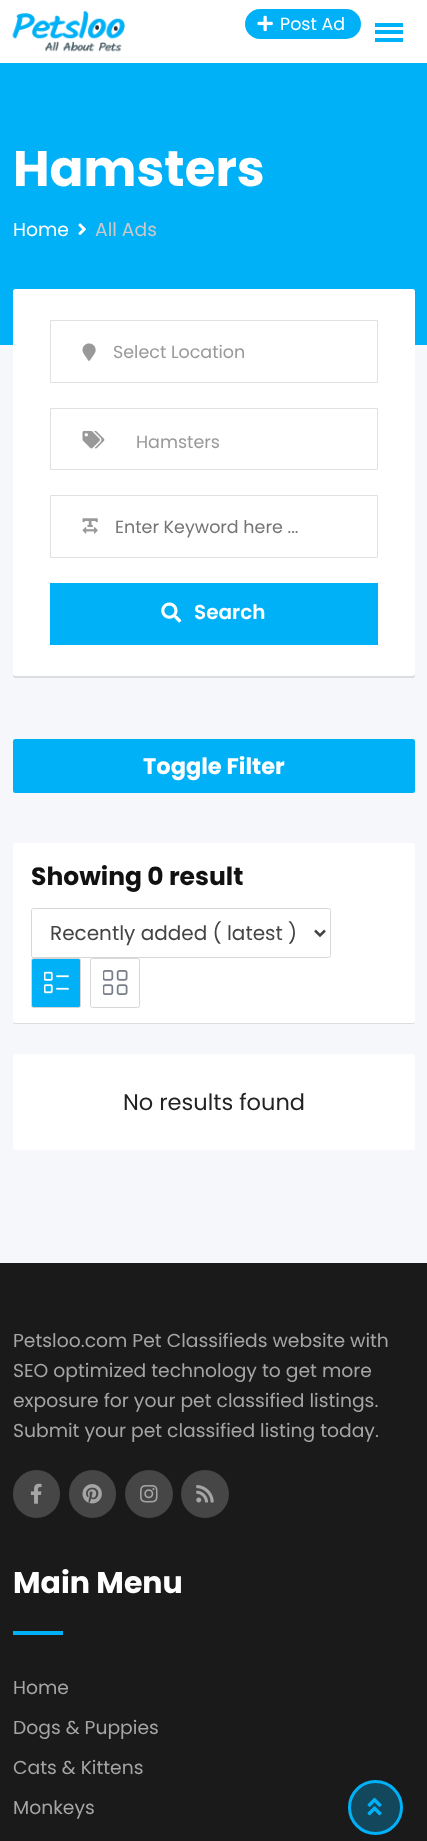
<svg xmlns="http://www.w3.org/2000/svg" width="427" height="1841">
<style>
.a{font:17.5px Poppins;fill:#fff}
.b{font:bold 50px Poppins;fill:#fff}
.c{font:18.75px Poppins;fill:#fff}
.d{font:18.75px Poppins;fill:#cacaca}
.e{font:17.5px Poppins;fill:#999}
.f{font:17.5px Poppins;fill:#757575}
.g{font:600 20px Poppins;fill:#fff}
.h{font:bold 22.5px Poppins;fill:#fff}
.i{font:bold 25px Poppins;fill:#111}
.j{font:20px Poppins;fill:#444}
.k{font:22.5px Poppins;fill:#222}
.l{font:18.75px Poppins;fill:#a5a5a5}
.m{font:bold 30px Poppins;fill:#fff}
</style>
<rect width="100%" height="100%" fill="#f5f7fa"/>
<path fill="#fff" d="M0 0h427v63H0z"/>
<image href="1.png" x="12" y="11" width="113" height="41"/>
<rect fill="#00b1f7" x="245" y="9" width="116" height="30" rx="15"/>
<image href="2.png" x="257" y="15" width="16" height="17"/>
<path fill="#00b1f7" d="M375 23h28v4H375z"/>
<path fill="#00b1f7" d="M375 30h28v4H375z"/>
<path fill="#00b1f7" d="M375 38h28v4H375z"/>
<path fill="#00b1f7" d="M0 63h427v282H0z"/>
<image href="3.png" x="78" y="223" width="8" height="12"/>
<rect fill="#0000001a" filter="blur(0.5px)" x="13" y="290" width="402" height="388" rx="2.5"/>
<rect fill="#fff" x="13" y="289" width="402" height="387" rx="2.5"/>
<path fill="none" stroke="#e1e1e1" d="M50.5 320.5h327v62H50.5z"/>
<image href="4.png" x="82" y="343" width="14" height="18"/>
<path fill="none" stroke="#e1e1e1" d="M50.5 408.5h327v61H50.5z"/>
<image href="5.png" x="82" y="430" width="23" height="19"/>
<path fill="none" stroke="#e1e1e1" d="M50.5 495.5h327v62H50.5z"/>
<image href="6.png" x="82" y="518" width="16" height="16"/>
<path fill="#00b1f7" d="M50 583h328v62H50z"/>
<image href="7.png" x="161" y="602" width="21" height="21"/>
<rect fill="#00b1f7" x="13" y="739" width="402" height="54" rx="2.5"/>
<rect fill="#0000001a" filter="blur(0.5px)" x="13" y="844" width="402" height="180" rx="2.5"/>
<rect fill="#fff" x="13" y="843" width="402" height="180" rx="2.5"/>
<rect fill="none" stroke="#d7d7d7" x="31.5" y="908.5" width="299" height="49" rx="2"/>
<path fill="none" stroke="#444" stroke-width="2.5" d="M315 930.5l5 5l5-5"/>
<rect fill="#00b1f7" stroke="#d7d7d7" x="31.5" y="958.5" width="49" height="49" rx="2"/>
<image href="8.png" x="44" y="971" width="25" height="23"/>
<rect fill="none" stroke="#d7d7d7" x="90.5" y="958.5" width="49" height="49" rx="2"/>
<image href="9.png" x="103" y="970" width="25" height="25"/>
<rect fill="#fff" x="13" y="1054" width="402" height="96" rx="2.5"/>
<path fill="#1a1a1a" d="M0 1263h427v578H0z"/>
<rect fill="#464646" x="13" y="1470" width="47" height="48" rx="23.5"/>
<image href="10.png" x="30" y="1483" width="12" height="21"/>
<rect fill="#464646" x="69" y="1470" width="47" height="48" rx="23.5"/>
<image href="11.png" x="82" y="1484" width="20" height="20"/>
<circle fill="#464646" cx="149" cy="1494" r="24"/>
<image href="12.png" x="140" y="1485" width="18" height="18"/>
<circle fill="#464646" cx="205" cy="1494" r="24"/>
<image href="13.png" x="196" y="1485" width="18" height="18"/>
<path fill="#00b1f7" d="M13 1631h50v4H13z"/>
<circle fill="#12475c" stroke="#00b1f7" stroke-width="3" cx="375.5" cy="1807.5" r="26"/>
<image href="14.png" x="367" y="1797" width="15" height="19"/>
<text class="a" x="280" y="30">Post Ad</text>
<text class="b" x="13" y="186">Hamsters</text>
<text class="c" x="13" y="236">Home</text>
<text class="d" x="95" y="236">All Ads</text>
<text class="e" x="113" y="358">Select Location</text>
<text class="e" x="136" y="448">Hamsters</text>
<text class="f" x="115" y="533">Enter Keyword here ...</text>
<text class="g" x="194" y="619">Search</text>
<text class="h" x="143" y="774">Toggle Filter</text>
<text class="i" x="31" y="885">Showing 0 result</text>
<text class="j" x="50" y="940">Recently added ( latest )</text>
<text class="k" x="123" y="1110">No results found</text>
<text class="l" x="13" y="1347">Petsloo.com Pet Classifieds website with</text>
<text class="l" x="13" y="1377">SEO optimized technology to get more</text>
<text class="l" x="13" y="1407">exposure for your pet classified listings.</text>
<text class="l" x="13" y="1437">Submit your pet classified listing today.</text>
<text class="m" x="13" y="1593">Main Menu</text>
<text class="l" x="13" y="1694">Home</text>
<text class="l" x="13" y="1734">Dogs &amp; Puppies</text>
<text class="l" x="13" y="1774">Cats &amp; Kittens</text>
<text class="l" x="13" y="1814">Monkeys</text>
</svg>
